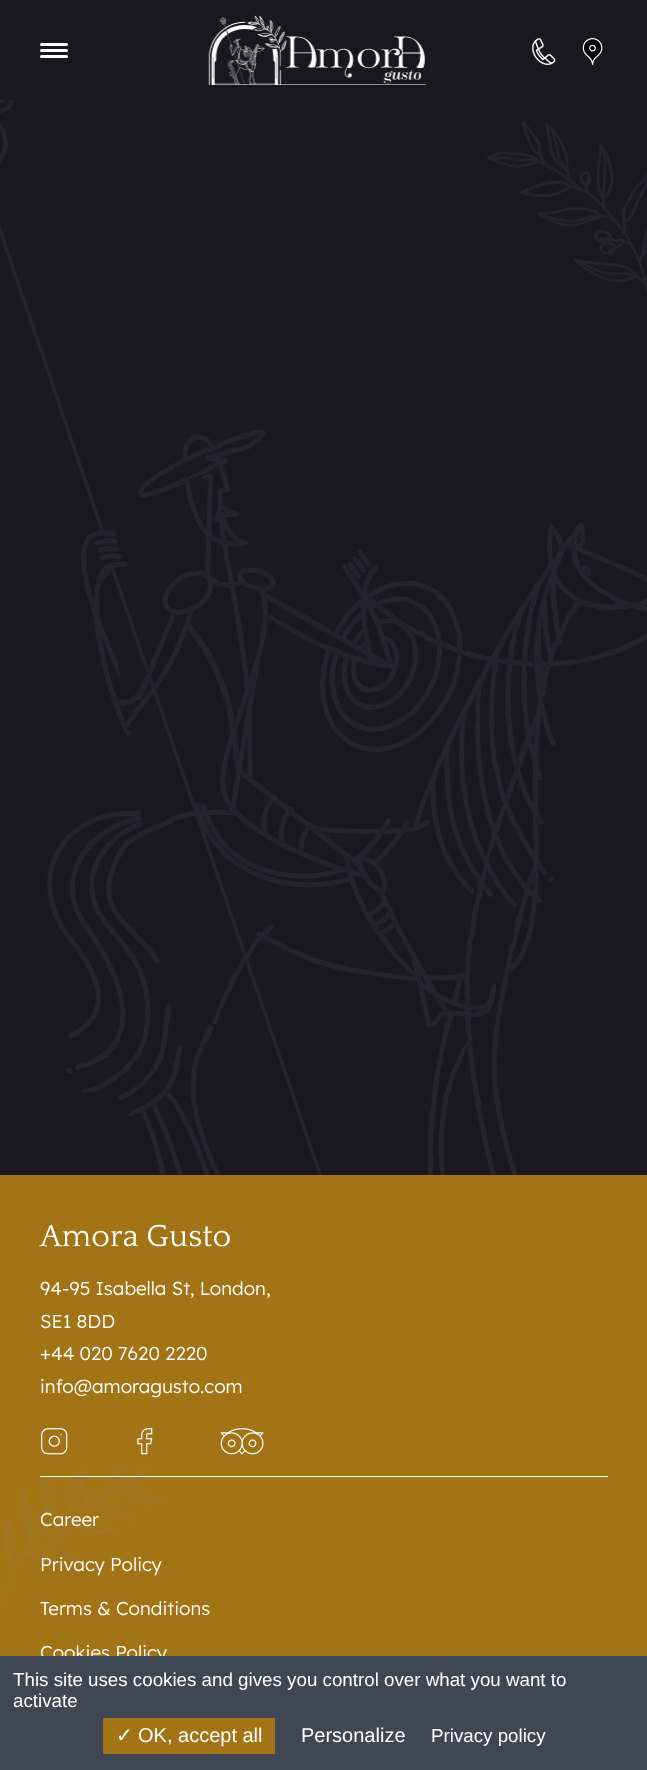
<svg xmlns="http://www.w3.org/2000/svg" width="647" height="1770">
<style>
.a{font:32px Quattrocento;fill:#fff}
.b{font:300 18.75px Lexend;fill:#fff}
.c{font:18.75px Liberation Sans;fill:#fff}
.d{font:20px DejaVu Sans;fill:#fff}
.e{font:20px Liberation Sans;fill:#fff}
</style>
<rect width="100%" height="100%" fill="#18181d"/>
<rect fill="#fff" x="40" y="43" width="28" height="3" rx="1.5"/>
<rect fill="#fff" x="40" y="49" width="28" height="3" rx="1.5"/>
<rect fill="#fff" x="40" y="55" width="28" height="3" rx="1.5"/>
<image href="1.png" x="208" y="15" width="219" height="70"/>
<image href="2.png" x="532" y="38" width="24" height="27"/>
<image href="3.png" x="582" y="38" width="21" height="27"/>
<image href="4.png" x="0" y="100" width="647" height="1075"/>
<image href="5.png" x="486" y="121" width="161" height="172"/>
<path fill="#a27416" d="M0 1175h647v481H0z"/>
<path fill="#fff" d="M40 1476h568v1H40z"/>
<image href="7.png" x="41" y="1428" width="27" height="27"/>
<image href="8.png" x="137" y="1428" width="16" height="27"/>
<image href="9.png" x="220" y="1428" width="44" height="27"/>
<text class="a" x="40" y="1246">Amora Gusto</text>
<text class="b" x="40" y="1295">94-95 Isabella St, London,</text>
<text class="b" x="40" y="1328">SE1 8DD</text>
<text class="b" x="40" y="1360">+44 020 7620 2220</text>
<text class="b" x="40" y="1393">info@amoragusto.com</text>
<text class="b" x="40" y="1526">Career</text>
<text class="b" x="40" y="1571">Privacy Policy</text>
<text class="b" x="40" y="1615">Terms &amp; Conditions</text>
<image href="6.png" x="0" y="1465" width="163" height="143"/>
<text class="b" x="40" y="1659">Cookies Policy</text>
<path fill="#3e4753" d="M0 1656h647v114H0z"/>
<text class="c" x="13" y="1686">This site uses cookies and gives you control over what you want to</text>
<text class="c" x="13" y="1707">activate</text>
<path fill="#a27416" d="M103 1718h172v36H103z"/>
<text class="d" x="116" y="1742">✓</text>
<text class="e" x="138" y="1742">OK, accept all</text>
<text class="e" x="301" y="1742">Personalize</text>
<text class="c" x="431" y="1742">Privacy policy</text>
</svg>
